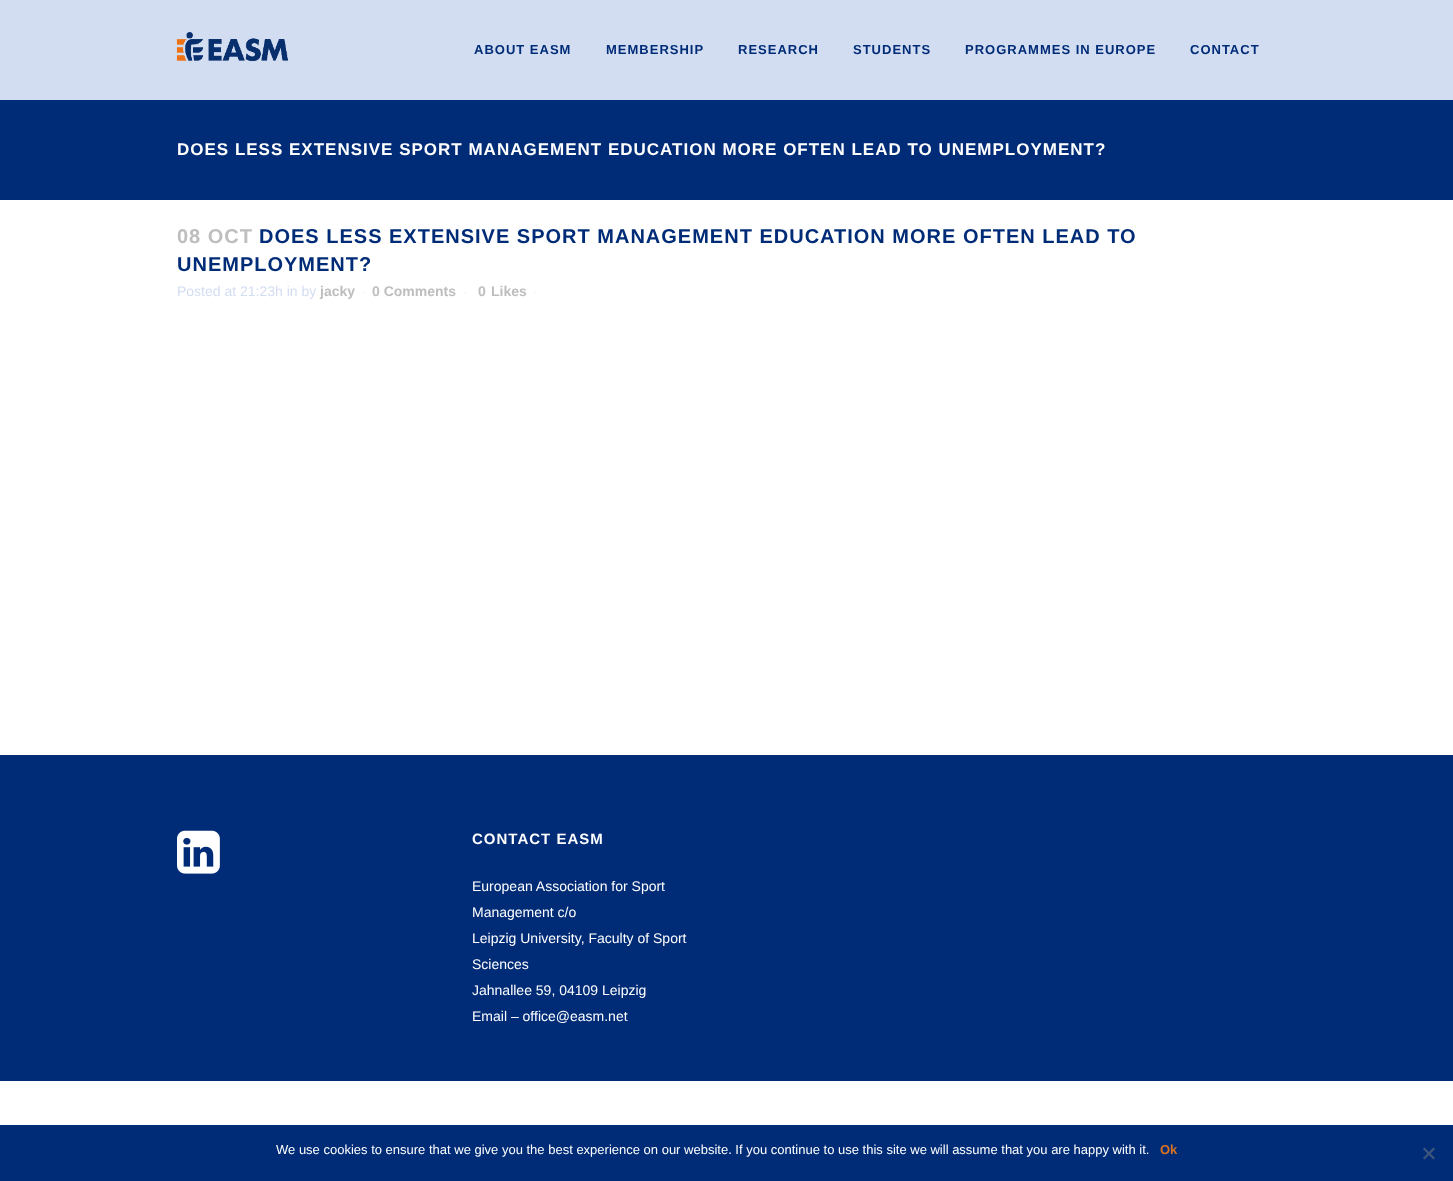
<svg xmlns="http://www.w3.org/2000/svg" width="1453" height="1181">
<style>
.a{font:bold 13px Liberation Sans;letter-spacing:1px;fill:#002c77}
.b{font:bold 17px Liberation Sans;letter-spacing:1px;fill:#fff}
.c{font:bold 20px Liberation Sans;letter-spacing:1px;fill:#bebebe}
.d{font:bold 20px Liberation Sans;letter-spacing:1px;fill:#002c77}
.e{font:14px Liberation Sans;fill:#d3ddf2}
.f{font:bold 14px Liberation Sans;fill:#bebebe}
.g{font:bold 15px Liberation Sans;letter-spacing:1px;fill:#fff}
.h{font:14px Liberation Sans;fill:#fff}
.i{font:13px Liberation Sans;fill:#fff}
.j{font:bold 13px Liberation Sans;fill:#d97222}
</style>
<rect width="100%" height="100%" fill="#fff"/>
<path fill="#d3ddf2" d="M0 0h1453v100H0z"/>
<image href="1.png" x="176" y="32" width="112" height="30"/>
<path fill="#002c77" d="M0 100h1453v100H0z"/>
<image href="2.png" x="363" y="291" width="2" height="3"/>
<image href="2.png" x="464" y="291" width="2" height="3"/>
<image href="2.png" x="534" y="291" width="2" height="3"/>
<path fill="#002c77" d="M0 755h1453v326H0z"/>
<image href="3.png" x="177" y="830" width="43" height="44"/>
<path fill="#002c77" d="M0 1125h1453v56H0z"/>
<path fill="#40567c" d="M1433.5 1147.5l1.5 1.5l-10.5 10.5l-1.5-1.5z"/>
<path fill="#40567c" d="M1423 1149l1.5-1.5l10.5 10.5l-1.5 1.5z"/>
<text class="a" x="474" y="54">ABOUT EASM</text>
<text class="a" x="606" y="54">MEMBERSHIP</text>
<text class="a" x="738" y="54">RESEARCH</text>
<text class="a" x="853" y="54">STUDENTS</text>
<text class="a" x="965" y="54">PROGRAMMES IN EUROPE</text>
<text class="a" x="1190" y="54">CONTACT</text>
<text class="b" x="177" y="155">DOES LESS EXTENSIVE SPORT MANAGEMENT EDUCATION MORE OFTEN LEAD TO UNEMPLOYMENT?</text>
<text class="c" x="177" y="243">08 OCT</text>
<text class="d" x="259" y="243">DOES LESS EXTENSIVE SPORT MANAGEMENT EDUCATION MORE OFTEN LEAD TO</text>
<text class="d" x="177" y="271">UNEMPLOYMENT?</text>
<text class="e" x="177" y="296">Posted at 21:23h in by</text>
<text class="f" x="320" y="296">jacky</text>
<text class="f" x="372" y="296">0 Comments</text>
<text class="f" x="478" y="296">0</text>
<text class="f" x="491" y="296">Likes</text>
<text class="g" x="472" y="844">CONTACT EASM</text>
<text class="h" x="472" y="891">European Association for Sport</text>
<text class="h" x="472" y="917">Management c/o</text>
<text class="h" x="472" y="943">Leipzig University, Faculty of Sport</text>
<text class="h" x="472" y="969">Sciences</text>
<text class="h" x="472" y="995">Jahnallee 59, 04109 Leipzig</text>
<text class="h" x="472" y="1021">Email – office@easm.net</text>
<text class="i" x="276" y="1154">We use cookies to ensure that we give you the best experience on our website. If you continue to use this site we will assume that you are happy with it.</text>
<text class="j" x="1160" y="1154">Ok</text>
</svg>
